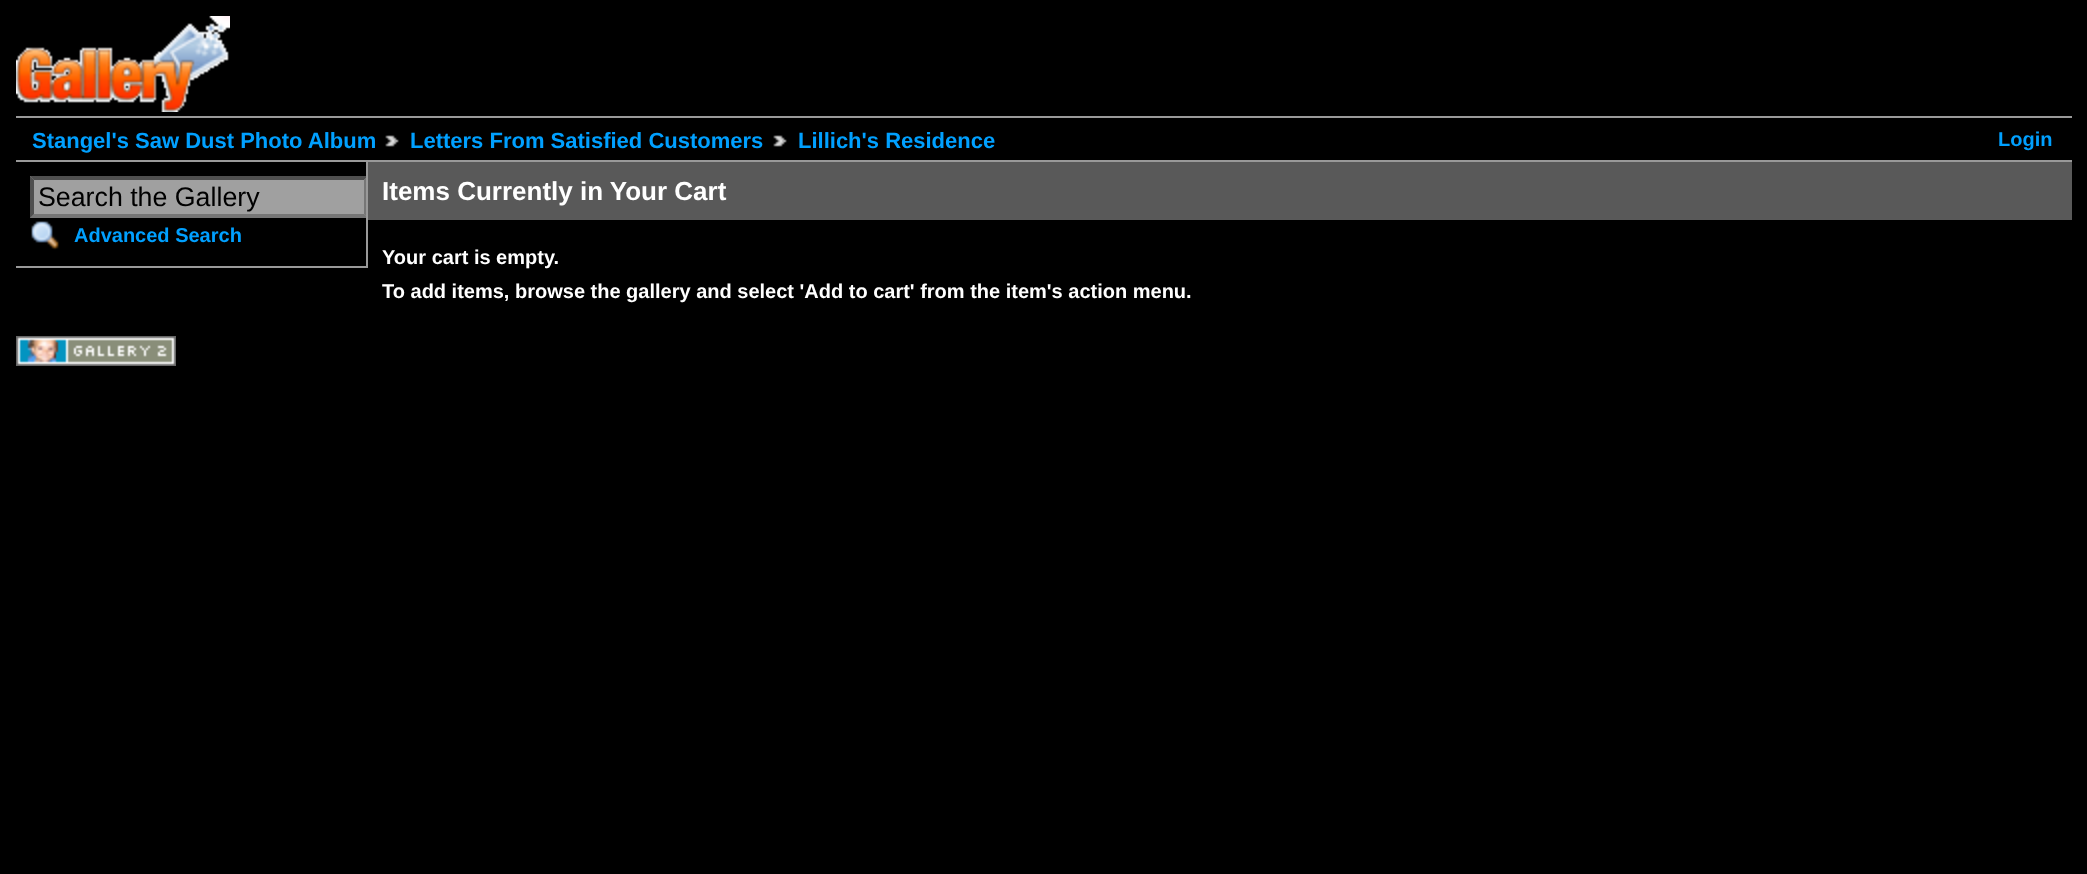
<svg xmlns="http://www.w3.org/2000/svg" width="2087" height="874">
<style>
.a{font:bold 22px Liberation Sans;fill:#00a0ff}
.b{font:bold 20px Liberation Sans;fill:#00a0ff}
.c{font:26.75px Liberation Sans;fill:#000}
.d{font:bold 26px Liberation Sans;fill:#fff}
.e{font:bold 20px Liberation Sans;fill:#fff}
</style>
<defs>
<clipPath id="clip1"><path d="M16 162h350v106H16z"/></clipPath>
</defs>
<rect width="100%" height="100%" fill="#000"/>
<image href="1.png" x="16" y="16" width="214" height="96"/>
<path fill="#999" d="M16 116h2056v2H16z"/>
<path fill="#999" d="M16 160h2056v2H16z"/>
<image href="2.png" x="385" y="135" width="14" height="12"/>
<image href="2.png" x="773" y="135" width="14" height="12"/>
<path fill="#999" d="M366 162h2v106H366z"/>
<path fill="#999" d="M16 266h350v2H16z"/>
<path fill="#a0a0a0" d="M30 176h336v42H30z"/>
<g clip-path="url(#clip1)">
<path fill="#4f4f4f" d="M30 176h338l-4 4h-330z"/>
<path fill="#767676" d="M368 176v42l-4-4v-34z"/>
<path fill="#767676" d="M368 218h-338l4-4h330z"/>
</g>
<path fill="#4f4f4f" d="M30 218v-42l4 4v34z"/>
<image href="3.png" x="31" y="221" width="28" height="29"/>
<path fill="#595959" d="M368 162h1704v58H368z"/>
<image href="4.png" x="16" y="336" width="160" height="30"/>
<text class="a" x="32" y="148">Stangel's Saw Dust Photo Album</text>
<text class="a" x="410" y="148">Letters From Satisfied Customers</text>
<text class="a" x="798" y="148">Lillich's Residence</text>
<text class="b" x="1998" y="146">Login</text>
<text class="c" x="38" y="206">Search the Gallery</text>
<text class="b" x="74" y="242">Advanced Search</text>
<text class="d" x="382" y="200">Items Currently in Your Cart</text>
<text class="e" x="382" y="264">Your cart is empty.</text>
<text class="e" x="382" y="298">To add items, browse the gallery and select 'Add to cart' from the item's action menu.</text>
</svg>
